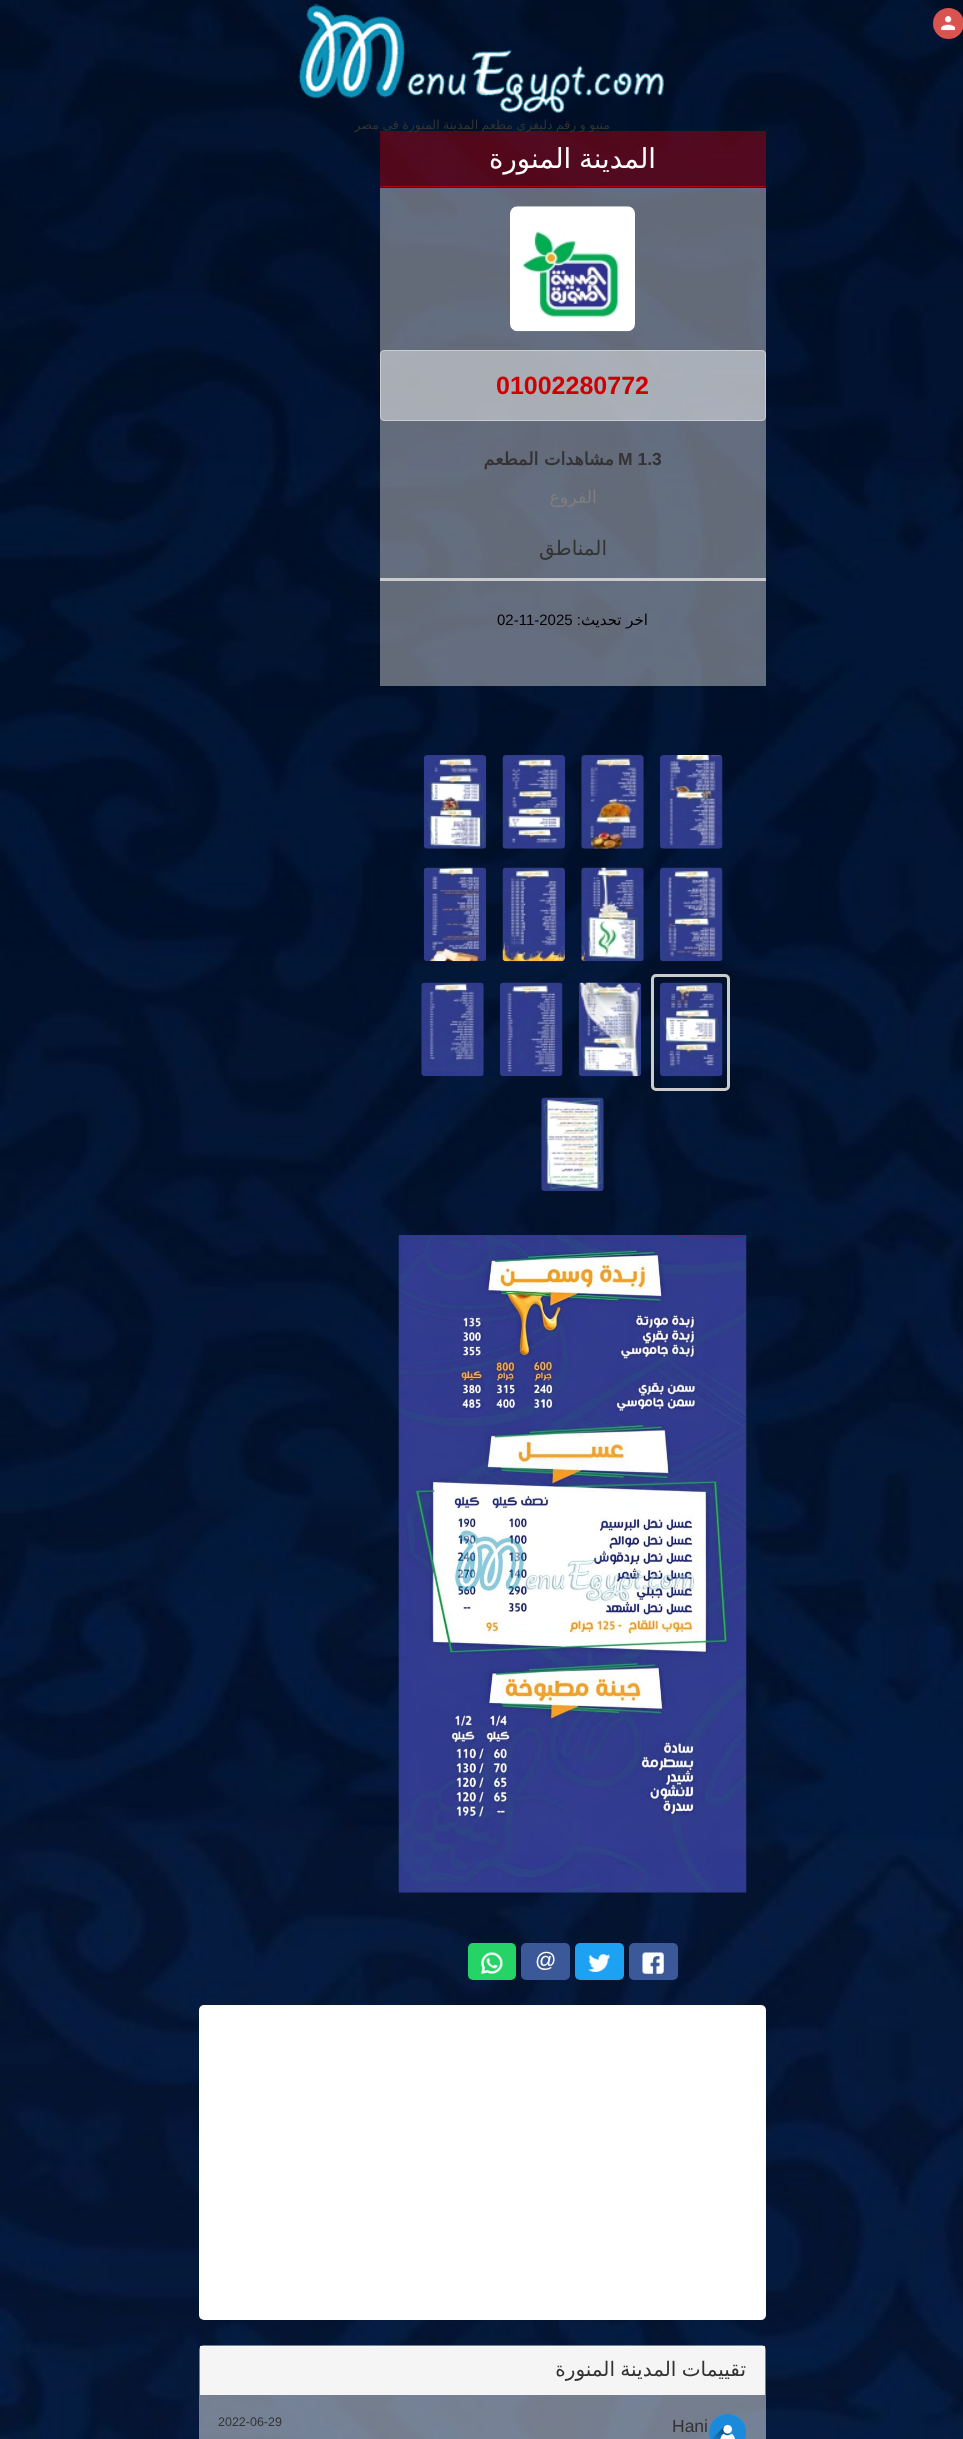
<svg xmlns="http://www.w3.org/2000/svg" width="963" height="2439">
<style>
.a{font:12.5px DejaVu Sans;direction:rtl;fill:#333}
.b{font:27.5px DejaVu Sans;direction:rtl;fill:#fff}
.c{font:bold 25px Liberation Sans;fill:#c00}
.d{font:bold 17.5px Liberation Sans;fill:#333}
.e{font:bold 17.5px DejaVu Sans;direction:rtl;fill:#333}
.f{font:17.5px DejaVu Sans;direction:rtl;fill:#7f7e7e}
.g{font:20px DejaVu Sans;direction:rtl;fill:#333}
.h{font:15px DejaVu Sans;direction:rtl;fill:#000}
.i{font:15px Liberation Sans;direction:rtl;fill:#000}
.j{font:15px Liberation Sans;fill:#000}
.k{font:21px Liberation Sans;fill:#fff}
.l{font:17.5px Liberation Sans;fill:#333}
.m{font:12.5px Liberation Sans;fill:#333}
</style>
<rect width="100%" height="100%" fill="#fff"/>
<image href="1.png" x="0" y="0" width="963" height="2439"/>
<circle fill="#d9534f" cx="948.5" cy="23.5" r="15.5"/>
<image href="2.png" x="941" y="16" width="15" height="15"/>
<image href="3.png" x="298" y="3" width="366" height="111"/>
<path fill="#dcdcdc73" d="M380 188h386v498H380z"/>
<image href="4.png" x="510" y="206" width="125" height="126"/>
<rect fill="#ffffff73" stroke="#ccc" x="380.5" y="350.5" width="385" height="70" rx="3.5"/>
<path fill="#ccc" d="M380 578h386v3H380z"/>
<image href="5.png" x="660" y="755" width="63" height="94"/>
<image href="6.png" x="581" y="755" width="63" height="94"/>
<image href="7.png" x="502" y="755" width="63" height="94"/>
<image href="8.png" x="423" y="755" width="64" height="94"/>
<image href="9.png" x="660" y="867" width="63" height="95"/>
<image href="10.png" x="581" y="867" width="63" height="95"/>
<image href="11.png" x="502" y="867" width="63" height="95"/>
<image href="12.png" x="423" y="867" width="64" height="95"/>
<rect fill="none" stroke="#ccc" stroke-width="3" x="652.5" y="975.5" width="76" height="114" rx="3.5"/>
<image href="13.png" x="660" y="982" width="63" height="95"/>
<image href="14.png" x="578" y="982" width="64" height="95"/>
<image href="15.png" x="500" y="982" width="63" height="95"/>
<image href="16.png" x="421" y="982" width="63" height="95"/>
<image href="17.png" x="541" y="1097" width="63" height="95"/>
<image href="18.png" x="398" y="1235" width="349" height="658"/>
<rect fill="#3b5998" x="629" y="1943" width="49" height="37" rx="5"/>
<image href="19.png" x="642" y="1952" width="22" height="22"/>
<rect fill="#1da1f2" x="575" y="1943" width="49" height="37" rx="5"/>
<image href="20.png" x="588" y="1954" width="22" height="18"/>
<rect fill="#3b5998" x="521" y="1943" width="49" height="37" rx="5"/>
<rect fill="#25d366" x="468" y="1943" width="48" height="37" rx="5"/>
<image href="21.png" x="481" y="1952" width="22" height="22"/>
<rect fill="#fff" x="199" y="2005" width="567" height="315" rx="5"/>
<rect fill="#ffffff73" x="199" y="2345" width="567" height="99" rx="5"/>
<path fill="#f5f5f5" d="M200 2346h565v49H200z"/>
<image href="22.png" x="708" y="2413" width="39" height="26"/>
<text class="a" x="610" y="129" word-spacing="-0.5">منيو و رقم دليفرى مطعم المدينة المنورة فى</text>
<text class="a" x="379" y="129">مصر</text>
<path fill="#af000d78" d="M380 131h386v57H380z"/>
<path fill="#af000d" d="M380 186h386v1H380z"/>
<text class="b" x="656" y="168" word-spacing="-1">المدينة المنورة</text>
<text class="c" x="496" y="394">01002280772</text>
<text class="d" x="618" y="465">M 1.3</text>
<text class="e" x="614" y="465">مشاهدات المطعم</text>
<text class="f" x="597" y="503">الفروع</text>
<text class="g" x="607" y="555">المناطق</text>
<text class="h" x="648" y="625">اخر تحديث</text>
<text class="i" x="581" y="625">:</text>
<text class="j" x="497" y="625">02-11-2025</text>
<text class="k" x="535" y="1967">@</text>
<text class="g" x="746" y="2376" word-spacing="-1">تقييمات المدينة المنورة</text>
<text class="l" x="672" y="2432">Hani</text>
<text class="m" x="218" y="2426">2022-06-29</text>
</svg>
